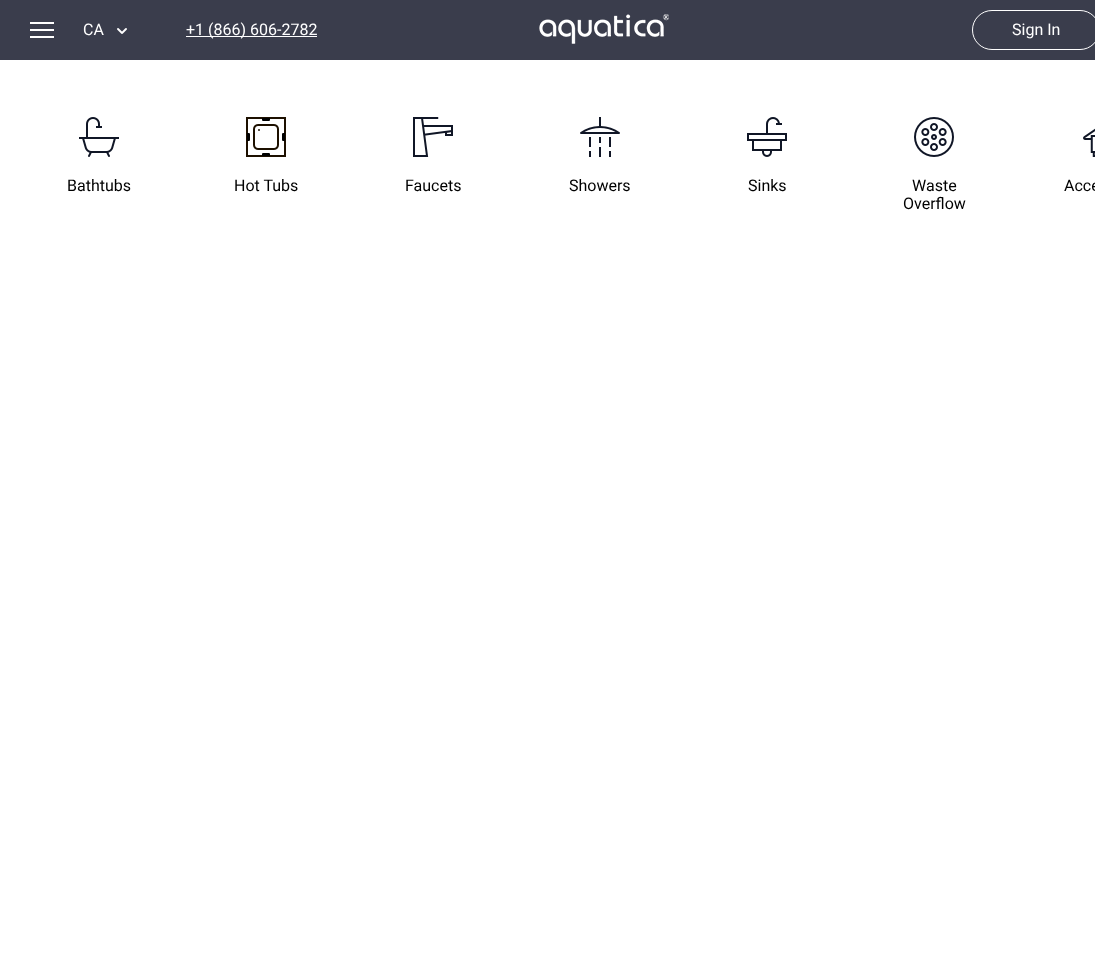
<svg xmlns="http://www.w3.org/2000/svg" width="1095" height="958">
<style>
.a{font:16px Roboto;fill:#fff}
.b{font:16px Roboto;fill:#000}
</style>
<rect width="100%" height="100%" fill="#fff"/>
<path fill="#3a3d4c" d="M0 0h1095v60H0z"/>
<image href="1.png" x="30" y="22" width="24" height="16"/>
<image href="2.png" x="117" y="28" width="10" height="6"/>
<path fill="#fff" d="M186 36h131v1H186z"/>
<image href="3.png" x="539" y="14" width="130" height="30"/>
<rect fill="none" stroke="#fff" x="972.5" y="10.5" width="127" height="39" rx="19.5"/>
<image href="4.png" x="79" y="117" width="40" height="40"/>
<image href="5.png" x="246" y="117" width="40" height="40"/>
<image href="6.png" x="413" y="117" width="40" height="40"/>
<image href="7.png" x="580" y="117" width="40" height="40"/>
<image href="8.png" x="747" y="117" width="40" height="40"/>
<image href="9.png" x="914" y="117" width="40" height="40"/>
<image href="10.png" x="1083" y="128" width="12" height="29"/>
<text class="a" x="83" y="35">CA</text>
<text class="a" x="186" y="35">+1 (866) 606-2782</text>
<text class="a" x="1012" y="35">Sign In</text>
<text class="b" x="67" y="191">Bathtubs</text>
<text class="b" x="234" y="191">Hot Tubs</text>
<text class="b" x="405" y="191">Faucets</text>
<text class="b" x="569" y="191">Showers</text>
<text class="b" x="748" y="191">Sinks</text>
<text class="b" x="912" y="191">Waste</text>
<text class="b" x="903" y="209">Overflow</text>
<text class="b" x="1064" y="191">Acce</text>
</svg>
